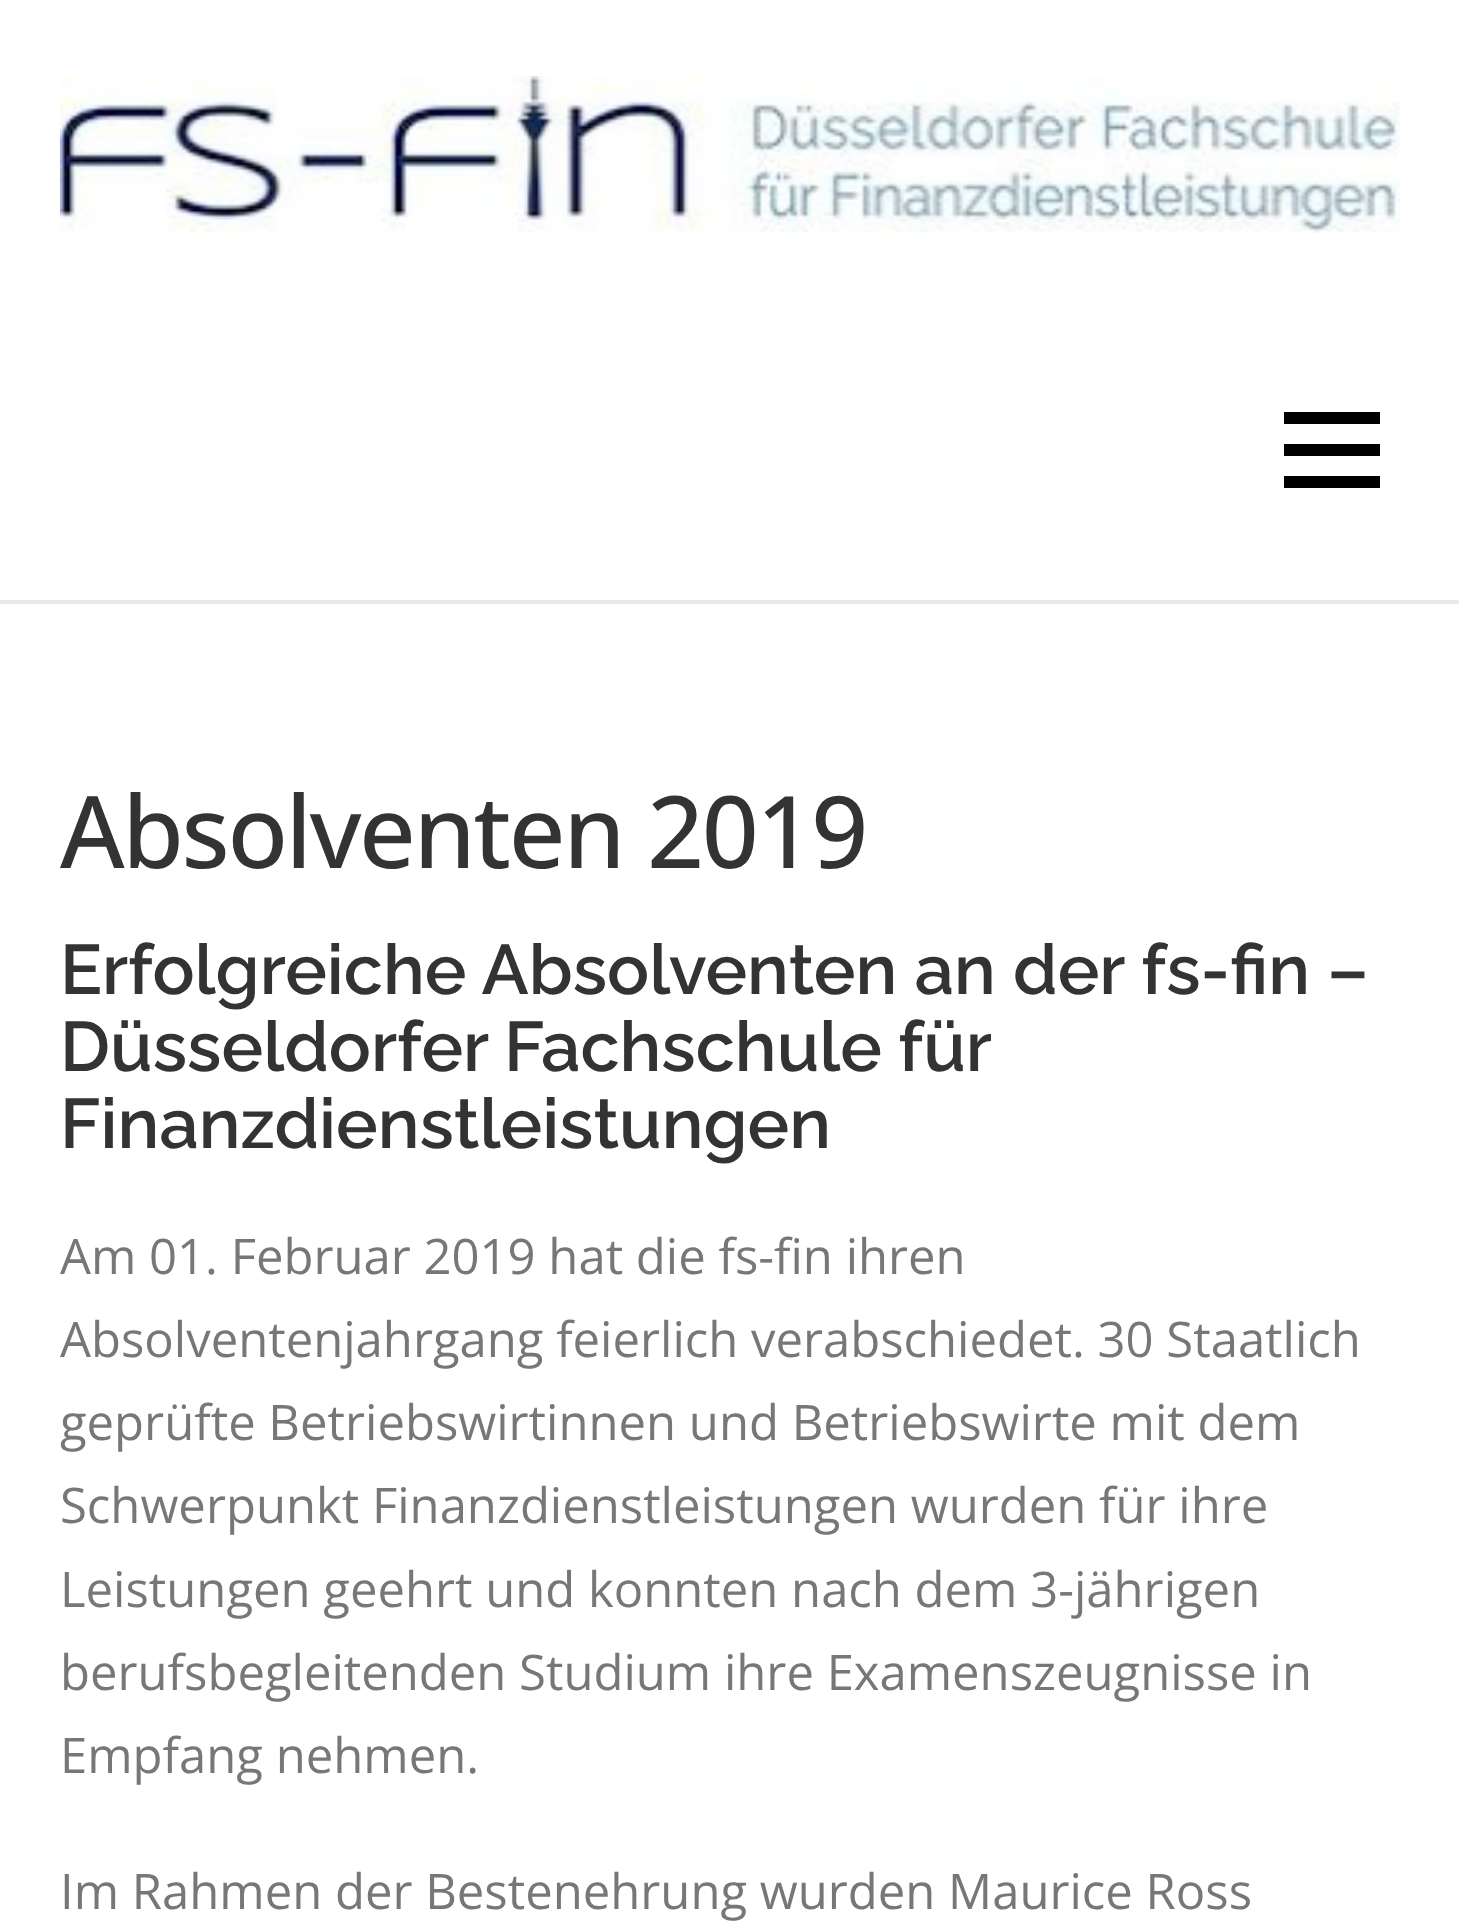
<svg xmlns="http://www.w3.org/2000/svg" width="1459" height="1921">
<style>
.a{font:500 100px Open Sans;letter-spacing:-2.4px;fill:#333}
.b{font:100 70px Raleway;fill:#333}
.c{font:49px Open Sans;fill:#777}
</style>
<rect width="100%" height="100%" fill="#fff"/>
<image href="1.png" x="60" y="76" width="1340" height="157"/>
<path fill="#000" d="M1284 444h96v12H1284z"/>
<path fill="#000" d="M1284 412h96v12H1284z"/>
<path fill="#000" d="M1284 476h96v12H1284z"/>
<path fill="#e9e9e9" d="M0 600h1459v4H0z"/>
<text class="a" x="60" y="868">Absolventen 2019</text>
<text class="b" x="60" y="994">Erfolgreiche Absolventen an der fs-fin –</text>
<text class="b" x="60" y="1071" word-spacing="-1">Düsseldorfer Fachschule für</text>
<text class="b" x="60" y="1148">Finanzdienstleistungen</text>
<text class="c" x="60" y="1274">Am 01. Februar 2019 hat die fs-fin ihren</text>
<text class="c" x="60" y="1357">Absolventenjahrgang feierlich verabschiedet. 30 Staatlich</text>
<text class="c" x="60" y="1440">geprüfte Betriebswirtinnen und Betriebswirte mit dem</text>
<text class="c" x="60" y="1523">Schwerpunkt Finanzdienstleistungen wurden für ihre</text>
<text class="c" x="60" y="1607">Leistungen geehrt und konnten nach dem 3-jährigen</text>
<text class="c" x="60" y="1690">berufsbegleitenden Studium ihre Examenszeugnisse in</text>
<text class="c" x="60" y="1773">Empfang nehmen.</text>
<text class="c" x="60" y="1909">Im Rahmen der Bestenehrung wurden Maurice Ross</text>
</svg>
